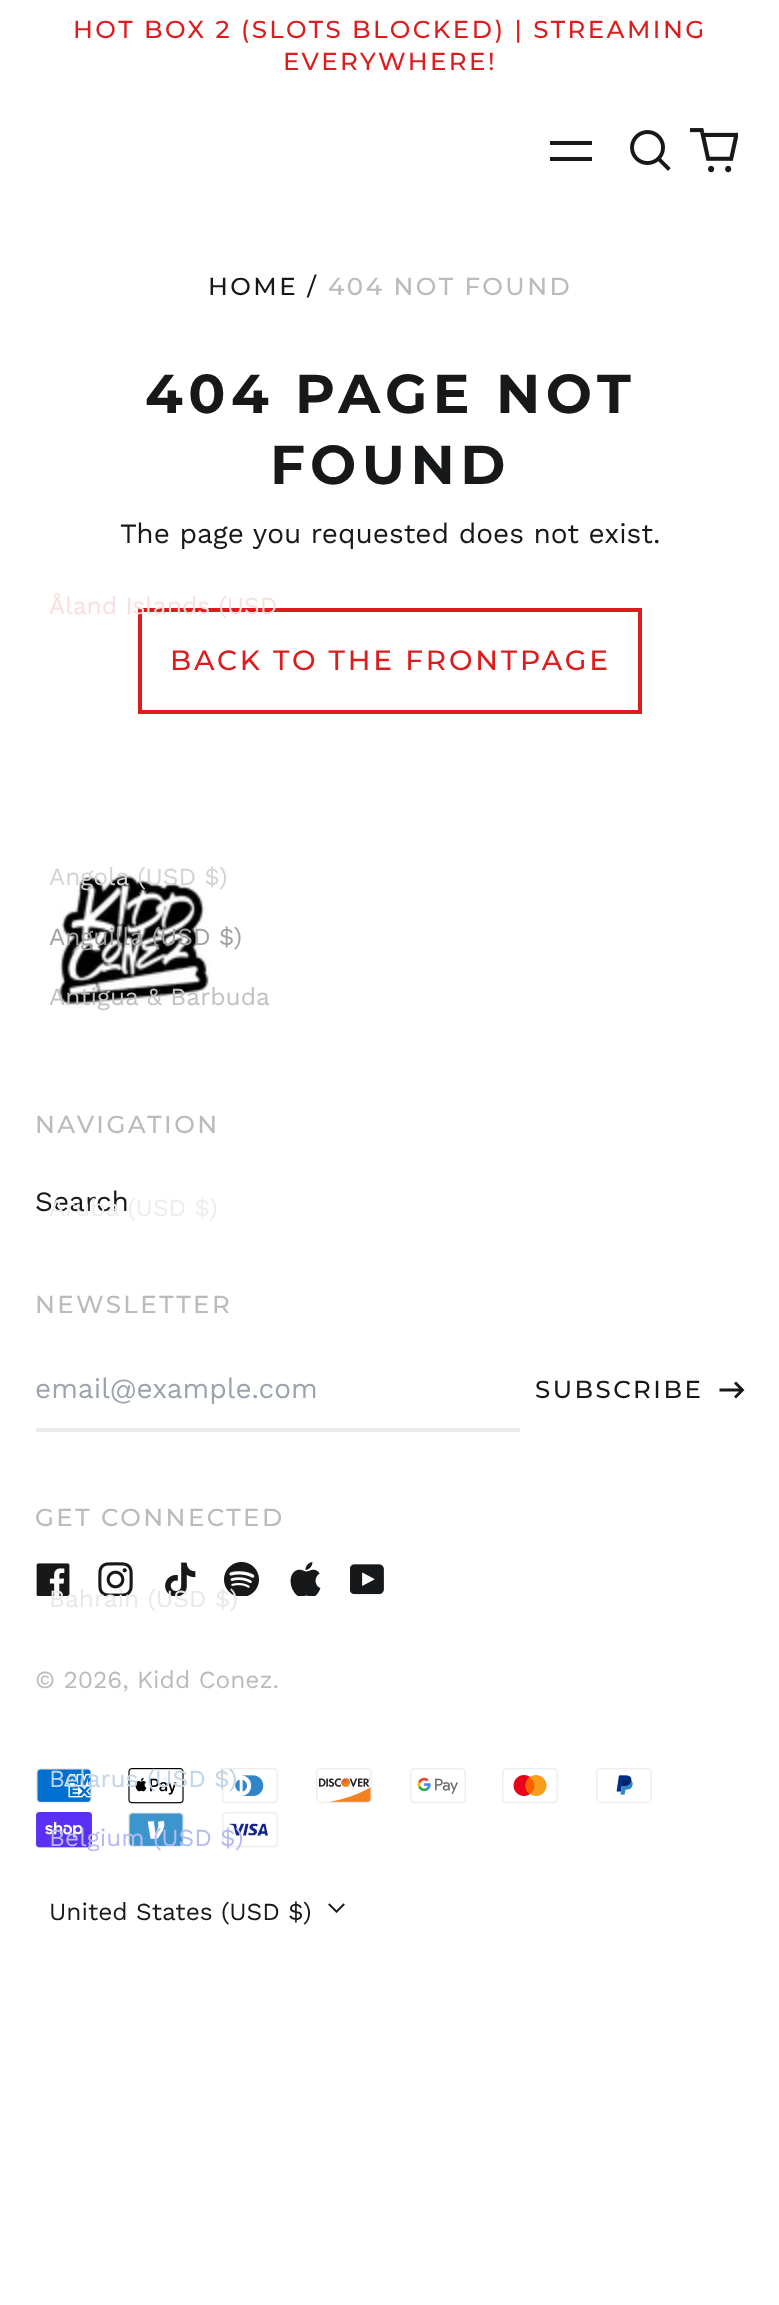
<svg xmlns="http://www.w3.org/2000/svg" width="779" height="2305">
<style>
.a{font:500 24.5px Montserrat;letter-spacing:2.45px;fill:#dd1d1d}
.b{font:500 24.5px Montserrat;letter-spacing:2.45px;fill:#161819}
.c{font:500 24.5px Montserrat;letter-spacing:2.45px;fill:#bbb}
.d{font:bold 54.75px Montserrat;letter-spacing:5.5px;fill:#161819}
.e{font:28px Work Sans;fill:#161819}
.f{font:500 28px Montserrat;letter-spacing:2.8px;fill:#dd1d1d}
.g{font:24.5px Work Sans;fill:#fadede}
.h{font:24.5px Work Sans;fill:#d3d3d3}
.i{font:24.5px Work Sans;fill:#a1a1a1}
.j{font:24.5px Work Sans;fill:#c1c1c1}
.k{font:24.5px Work Sans;fill:#e8e8e8}
.l{font:24.5px Work Sans;fill:#bfd4e6}
.m{font:24.5px Work Sans;fill:#b4baf2}
.n{font:24.5px Work Sans;fill:#161819}
.o{font:24.5px Work Sans;fill:#bbb}
.p{font:24.5px Work Sans;fill:#ededee}
.q{font:28px Work Sans;fill:#9ca3af}
</style>
<rect width="100%" height="100%" fill="#fff"/>
<path fill="#161819" fill-rule="evenodd" d="M592 157v4h-42v-4zm0-16v4h-42v-4z"/>
<image href="1.png" x="630" y="130" width="41" height="41"/>
<image href="2.png" x="690" y="128" width="48" height="45"/>
<path fill="none" stroke="#dd1d1d" stroke-width="4" d="M140 610h500v102H140z"/>
<image href="3.png" x="328" y="1903" width="17" height="10"/>
<image href="4.png" x="36" y="1768" width="56" height="36"/>
<image href="5.png" x="128" y="1768" width="56" height="36"/>
<image href="6.png" x="222" y="1768" width="56" height="36"/>
<image href="7.png" x="316" y="1768" width="56" height="36"/>
<image href="8.png" x="410" y="1768" width="56" height="36"/>
<image href="9.png" x="502" y="1768" width="56" height="36"/>
<image href="10.png" x="596" y="1768" width="56" height="36"/>
<image href="11.png" x="36" y="1812" width="56" height="36"/>
<image href="12.png" x="128" y="1812" width="56" height="35"/>
<image href="13.png" x="222" y="1812" width="56" height="36"/>
<image href="14.png" x="59" y="872" width="153" height="136"/>
<path fill="#ebebeb" d="M36 1428h484v4H36z"/>
<path fill="#161819" fill-rule="evenodd" d="M719.5 1391.5h19.5l-5 5l2 2l8.5-8.5l-8.5-8.5l-2 2l5 5h-19.5z"/>
<image href="15.png" x="36" y="1563" width="34" height="33"/>
<image href="16.png" x="98" y="1562" width="35" height="34"/>
<image href="17.png" x="165" y="1562" width="31" height="34"/>
<image href="18.png" x="224" y="1562" width="35" height="34"/>
<image href="19.png" x="290" y="1562" width="31" height="34"/>
<image href="20.png" x="350" y="1564" width="34" height="31"/>
<text class="a" x="73" y="38">HOT BOX 2 (SLOTS BLOCKED) | STREAMING</text>
<text class="a" x="283" y="70">EVERYWHERE!</text>
<text class="b" x="208" y="295">HOME /</text>
<text class="c" x="328" y="295">404 NOT FOUND</text>
<text class="d" x="145" y="413">404 PAGE NOT</text>
<text class="d" x="270" y="484">FOUND</text>
<text class="e" x="120" y="543">The page you requested does not exist.</text>
<text class="f" x="170" y="670">BACK TO THE FRONTPAGE</text>
<text class="g" x="49" y="614">Åland Islands (USD</text>
<text class="h" x="49" y="885">Angola (USD $)</text>
<text class="i" x="49" y="945">Anguilla (USD $)</text>
<text class="j" x="49" y="1005">Antigua &amp; Barbuda</text>
<text class="k" x="49" y="1607">Bahrain (USD $)</text>
<text class="l" x="49" y="1787">Belarus (USD $)</text>
<text class="m" x="49" y="1846">Belgium (USD $)</text>
<text class="n" x="49" y="1920">United States (USD $)</text>
<text class="o" x="35" y="1688">© 2026, Kidd Conez.</text>
<text class="c" x="35" y="1133">NAVIGATION</text>
<text class="e" x="35" y="1211">Search</text>
<text class="p" x="49" y="1216">Aruba (USD $)</text>
<text class="c" x="35" y="1313">NEWSLETTER</text>
<text class="q" x="35" y="1398">email@example.com</text>
<text class="b" x="535" y="1398">SUBSCRIBE</text>
<text class="c" x="35" y="1526">GET CONNECTED</text>
</svg>
